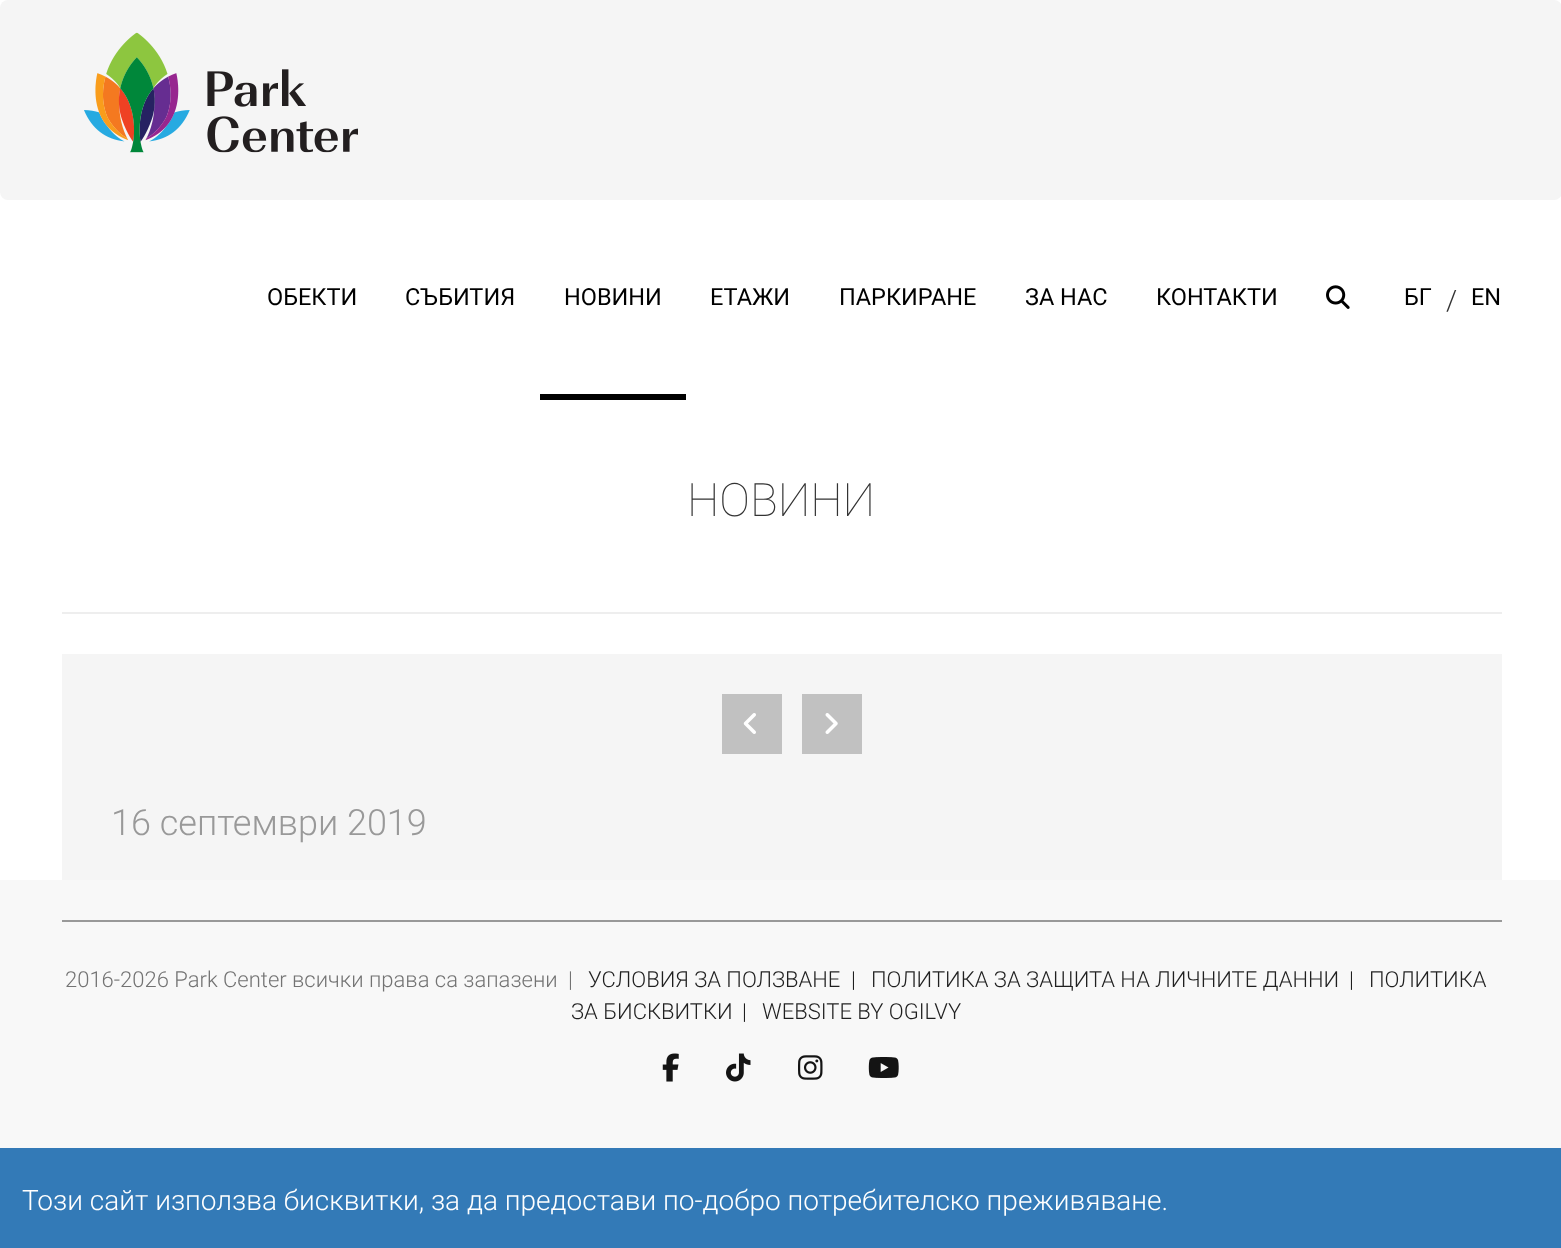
<svg xmlns="http://www.w3.org/2000/svg" width="1561" height="1248">
<style>
.a{font:23.5px Roboto;fill:#000}
.b{font:300 28px Roboto;fill:#333}
.c{font:100 46px Roboto;fill:#333}
.d{font:300 36px Roboto;fill:#999}
.e{font:300 22px Roboto;fill:#737373}
.f{font:300 22px Roboto;fill:#1f1f1f}
.g{font:300 28px Roboto;fill:#fff}
</style>
<rect width="100%" height="100%" fill="#fff"/>
<rect fill="#f5f5f5" width="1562" height="200" rx="8"/>
<image href="1.png" x="84" y="32" width="274" height="121"/>
<path fill="#000" d="M540 394h146v6H540z"/>
<image href="2.png" x="1326" y="285" width="24" height="24"/>
<path fill="#eee" d="M62 612h1440v2H62z"/>
<path fill="#f5f5f5" d="M62 654h1440v226H62z"/>
<path fill="#c1c1c1" d="M722 694h60v60H722z"/>
<image href="3.png" x="743" y="713" width="13" height="21"/>
<path fill="#c1c1c1" d="M802 694h60v60H802z"/>
<image href="4.png" x="825" y="713" width="13" height="21"/>
<path fill="#f8f8f8" d="M0 880h1561v268H0z"/>
<path fill="#999" d="M62 920h1440v2H62z"/>
<image href="5.png" x="662" y="1053" width="17" height="29"/>
<image href="6.png" x="726" y="1053" width="25" height="29"/>
<image href="7.png" x="798" y="1055" width="25" height="25"/>
<image href="8.png" x="868" y="1057" width="31" height="21"/>
<path fill="#337ab7" d="M0 1148h1561v100H0z"/>
<text class="a" x="267" y="305">ОБЕКТИ</text>
<text class="a" x="405" y="305">СЪБИТИЯ</text>
<text class="a" x="564" y="305">НОВИНИ</text>
<text class="a" x="710" y="305">ЕТАЖИ</text>
<text class="a" x="839" y="305">ПАРКИРАНЕ</text>
<text class="a" x="1025" y="305">ЗА НАС</text>
<text class="a" x="1156" y="305">КОНТАКТИ</text>
<text class="a" x="1404" y="305">БГ</text>
<text class="b" x="1446" y="310">/</text>
<text class="a" x="1471" y="305">EN</text>
<text class="c" x="687" y="516">НОВИНИ</text>
<text class="d" x="111" y="835">16 септември 2019</text>
<text class="e" x="65" y="987">2016-2026 Park Center всички права са запазени</text>
<text class="e" x="568" y="987">|</text>
<text class="f" x="588" y="987">УСЛОВИЯ ЗА ПОЛЗВАНЕ</text>
<text class="f" x="851" y="987">|</text>
<text class="f" x="871" y="987">ПОЛИТИКА ЗА ЗАЩИТА НА ЛИЧНИТЕ ДАННИ</text>
<text class="f" x="1349" y="987">|</text>
<text class="f" x="1369" y="987">ПОЛИТИКА</text>
<text class="f" x="571" y="1019">ЗА БИСКВИТКИ</text>
<text class="f" x="742" y="1019">|</text>
<text class="f" x="762" y="1019">WEBSITE BY OGILVY</text>
<text class="g" x="22" y="1210">Този сайт използва бисквитки, за да предостави по-добро потребителско преживяване.</text>
</svg>
